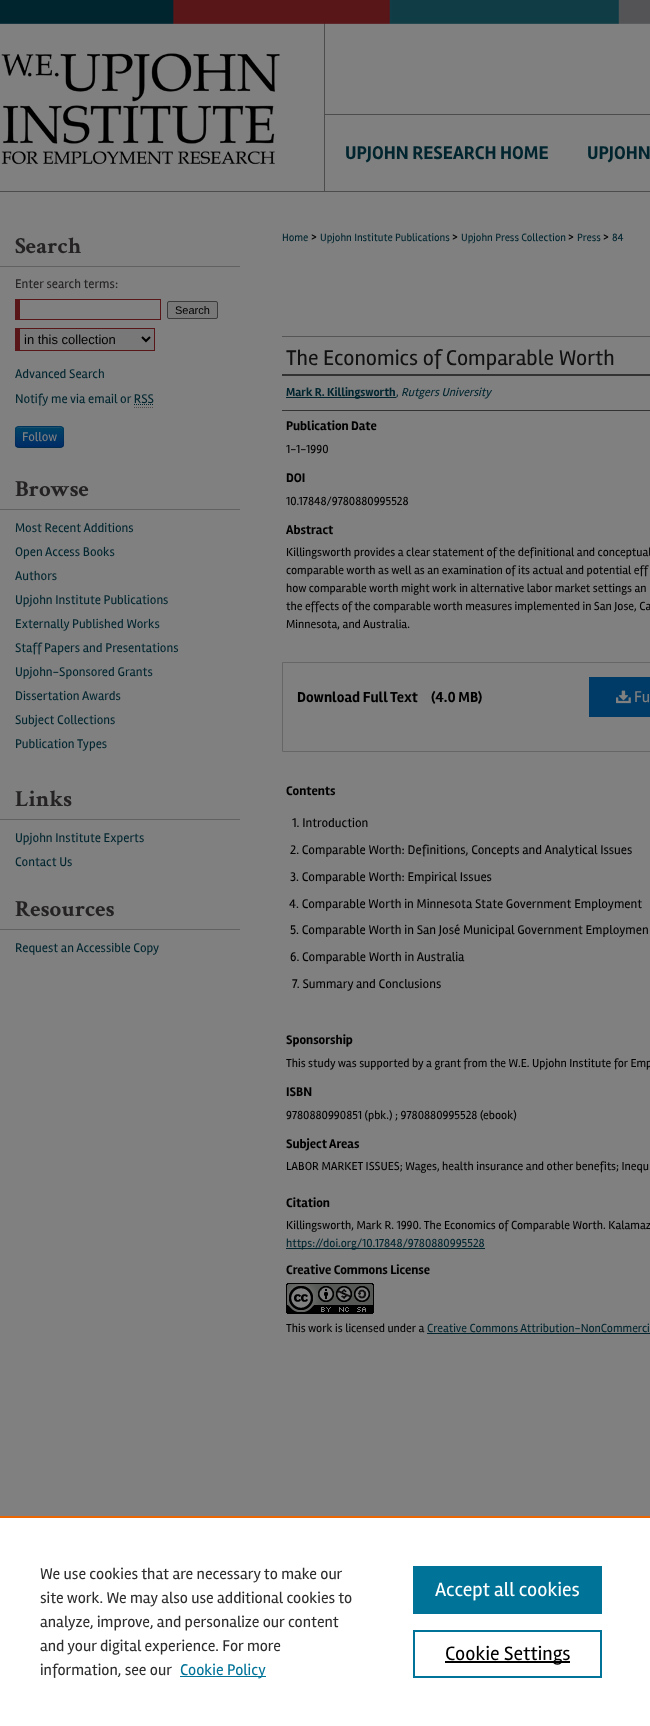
<svg xmlns="http://www.w3.org/2000/svg" width="650" height="1726">
<style>
.a{font:bold 19px Rambla;fill:#00252f}
.b{font:bold 23px Crimson Text;fill:#242222}
.c{font:13px Rambla;fill:#242222}
.d{font:11px Liberation Sans;fill:#000}
.e{font:13px Liberation Sans;fill:#000}
.f{font:13px Rambla;fill:#00252f}
.g{font:13px Rambla;fill:#808080}
.h{font:11px Rambla;fill:#00252f}
.i{font:13px Rambla;fill:#000}
.j{font:22px Rambla;fill:#111}
.k{font:bold 12px Rambla;fill:#00252f}
.l{font:12px Rambla;fill:#00252f}
.m{font:italic 12px Rambla;fill:#00252f}
.n{font:bold 13px Rambla;fill:#000}
.o{font:12px Rambla;fill:#000}
.p{font:bold 15px Rambla;fill:#000}
.q{font:16px Rambla;fill:#808080}
.r{font:16px Rambla;fill:#2e2e2e}
.s{font:16px Rambla;fill:#007398}
.t{font:20px Rambla;fill:#fff}
.u{font:20px Rambla;fill:#000}
</style>
<defs>
<clipPath id="clip1"><rect x="15" y="426" width="49" height="22" rx="4"/></clipPath>
<linearGradient id="g1" gradientUnits="userSpaceOnUse" x1="40" y1="427" x2="40" y2="447"><stop offset="0" stop-color="#046"/><stop offset="1" stop-color="#002b66"/></linearGradient>
</defs>
<rect width="100%" height="100%" fill="#808080"/>
<image href="1.png" x="0" y="0" width="650" height="192"/>
<image href="2.png" x="1" y="46" width="285" height="119"/>
<path fill="#616161" d="M0 266h240v1H0z"/>
<path fill="#581619" d="M15 299h146v1H15z"/>
<path fill="#581619" d="M160 299h1v21H160z"/>
<path fill="#581619" d="M15 319h146v1H15z"/>
<path fill="#581619" d="M15 299h5v21H15z"/>
<rect fill="#787878" stroke="#3b3b3b" x="167.5" y="301.5" width="50" height="17" rx="1.5"/>
<path fill="#787878" d="M20 329h134v21H20z"/>
<path fill="#581619" d="M15 328h140v1H15z"/>
<path fill="#581619" d="M154 328h1v23H154z"/>
<path fill="#581619" d="M15 350h140v1H15z"/>
<path fill="#581619" d="M15 328h5v23H15z"/>
<path fill="none" stroke="#000" stroke-width="2" d="M142 337l4 4l4-4"/>
<path fill="none" stroke="#00252f" stroke-dasharray="1 1" d="M134 404.5h20"/>
<path fill="none" stroke="#4d4d4d" stroke-dasharray="1 1" d="M134 407.5h20"/>
<rect fill="#003a66" x="15" y="426" width="49" height="22" rx="4"/>
<g clip-path="url(#clip1)">
<path fill="url(#g1)" d="M15 427h49v20H15z"/>
</g>
<path fill="#1a506b" d="M19 428h41c2 0 3 1 3 3c0-6-6-4-10-4h-27c-4 0-10-2-10 4c0-2 1-3 3-3z"/>
<path fill="none" stroke="#00000040" d="M62.5 446.5c-.5 .5-1.5 1-2.5 1h-41c-1 0-2-.5-2.5-1"/>
<path fill="none" stroke="#0000001a" d="M16.5 446.5c-2-2-1-7-1-9.5c0-11-1-10.5 10.5-10.5h27c11.5 0 10.5-.5 10.5 10.5c0 2.5 1 7.5-1 9.5"/>
<path fill="#616161" d="M0 509h240v1H0z"/>
<path fill="#616161" d="M0 819h240v1H0z"/>
<path fill="#616161" d="M0 929h240v1H0z"/>
<path fill="#555" d="M282 336h368v1H282z"/>
<path fill="#333" d="M282 374h368v2H282z"/>
<path fill="#333" d="M282 410h368v1H282z"/>
<path fill="#00252f" d="M286 397h110v1H286z"/>
<path fill="none" stroke="#666" d="M282.5 662.5h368v89H282.5z"/>
<path fill="#003a66" d="M589 677h61v40H589z"/>
<image href="3.png" x="616" y="690" width="15" height="14"/>
<path fill="#00252f" d="M286 1248h199v1H286z"/>
<image href="4.png" x="286" y="1283" width="88" height="31"/>
<path fill="#00252f" d="M427 1333h223v1H427z"/>
<path fill="#fff" d="M0 1518h650v208H0z"/>
<path fill="#eb6500" d="M0 1516h650v2H0z"/>
<path fill="#007398" d="M180 1676h86v1H180z"/>
<path fill="#007398" d="M413 1566h189v48H413z"/>
<path fill="none" stroke="#007398" stroke-width="2" d="M414 1631h187v46H414z"/>
<path fill="#000" d="M445 1661h125v2H445z"/>
<text class="a" x="345" y="159">UPJOHN RESEARCH HOME</text>
<text class="a" x="587" y="159">UPJOHN</text>
<text class="b" x="15" y="253">Search</text>
<text class="c" x="15" y="288">Enter search terms:</text>
<text class="d" x="175" y="314">Search</text>
<text class="e" x="24" y="344">in this collection</text>
<text class="f" x="15" y="378">Advanced Search</text>
<text class="f" x="15" y="403">Notify me via email or RSS</text>
<text class="g" x="22" y="441">Follow</text>
<text class="b" x="15" y="496">Browse</text>
<text class="f" x="15" y="532">Most Recent Additions</text>
<text class="f" x="15" y="556">Open Access Books</text>
<text class="f" x="15" y="580">Authors</text>
<text class="f" x="15" y="604">Upjohn Institute Publications</text>
<text class="f" x="15" y="628">Externally Published Works</text>
<text class="f" x="15" y="652">Staff Papers and Presentations</text>
<text class="f" x="15" y="676">Upjohn-Sponsored Grants</text>
<text class="f" x="15" y="700">Dissertation Awards</text>
<text class="f" x="15" y="724">Subject Collections</text>
<text class="f" x="15" y="748">Publication Types</text>
<text class="b" x="15" y="806">Links</text>
<text class="f" x="15" y="842">Upjohn Institute Experts</text>
<text class="f" x="15" y="866">Contact Us</text>
<text class="b" x="15" y="916">Resources</text>
<text class="f" x="15" y="952">Request an Accessible Copy</text>
<text class="h" x="282" y="241">Home</text>
<text class="i" x="311" y="241">&gt;</text>
<text class="h" x="320" y="241">Upjohn Institute Publications</text>
<text class="i" x="452" y="241">&gt;</text>
<text class="h" x="461" y="241">Upjohn Press Collection</text>
<text class="i" x="568" y="241">&gt;</text>
<text class="h" x="577" y="241">Press</text>
<text class="i" x="603" y="241">&gt;</text>
<text class="h" x="612" y="241">84</text>
<text class="j" x="286" y="365">The Economics of Comparable Worth</text>
<text class="k" x="286" y="396">Mark R. Killingsworth</text>
<text class="l" x="396" y="396">,</text>
<text class="m" x="401" y="396">Rutgers University</text>
<text class="n" x="286" y="430">Publication Date</text>
<text class="o" x="286" y="453">1-1-1990</text>
<text class="n" x="286" y="482">DOI</text>
<text class="o" x="286" y="505">10.17848/9780880995528</text>
<text class="n" x="286" y="534">Abstract</text>
<text class="o" x="286" y="556">Killingsworth provides a clear statement of the definitional and conceptual</text>
<text class="o" x="286" y="574">comparable worth as well as an examination of its actual and potential eff</text>
<text class="o" x="286" y="592">how comparable worth might work in alternative labor market settings an</text>
<text class="o" x="286" y="610">the effects of the comparable worth measures implemented in San Jose, Ca</text>
<text class="o" x="286" y="628">Minnesota, and Australia.</text>
<text class="p" x="297" y="702">Download Full Text</text>
<text class="p" x="431" y="702">(4.0 MB)</text>
<text class="q" x="634" y="702">Fu</text>
<text class="n" x="286" y="795">Contents</text>
<text class="i" x="292" y="827">1. Introduction</text>
<text class="i" x="290" y="854">2. Comparable Worth: Definitions, Concepts and Analytical Issues</text>
<text class="i" x="290" y="881">3. Comparable Worth: Empirical Issues</text>
<text class="i" x="289" y="908">4. Comparable Worth in Minnesota State Government Employment</text>
<text class="i" x="290" y="934">5. Comparable Worth in San José Municipal Government Employmen</text>
<text class="i" x="290" y="961">6. Comparable Worth in Australia</text>
<text class="i" x="292" y="988">7. Summary and Conclusions</text>
<text class="n" x="286" y="1044">Sponsorship</text>
<text class="o" x="286" y="1067">This study was supported by a grant from the W.E. Upjohn Institute for Emp</text>
<text class="n" x="286" y="1096">ISBN</text>
<text class="o" x="286" y="1119">9780880990851 (pbk.) ; 9780880995528 (ebook)</text>
<text class="n" x="286" y="1148">Subject Areas</text>
<text class="o" x="286" y="1170">LABOR MARKET ISSUES; Wages, health insurance and other benefits; Inequ</text>
<text class="n" x="286" y="1207">Citation</text>
<text class="o" x="286" y="1229">Killingsworth, Mark R. 1990. The Economics of Comparable Worth. Kalamaz</text>
<text class="l" x="286" y="1247">https://doi.org/10.17848/9780880995528</text>
<text class="n" x="286" y="1274">Creative Commons License</text>
<text class="o" x="286" y="1332">This work is licensed under a</text>
<text class="l" x="427" y="1332">Creative Commons Attribution-NonCommerci</text>
<text class="r" x="40" y="1579">We use cookies that are necessary to make our</text>
<text class="r" x="40" y="1603">site work. We may also use additional cookies to</text>
<text class="r" x="40" y="1627">analyze, improve, and personalize our content</text>
<text class="r" x="40" y="1651">and your digital experience. For more</text>
<text class="r" x="40" y="1675">information, see our</text>
<text class="s" x="180" y="1675">Cookie Policy</text>
<text class="t" x="435" y="1596">Accept all cookies</text>
<text class="u" x="445" y="1660">Cookie Settings</text>
</svg>
